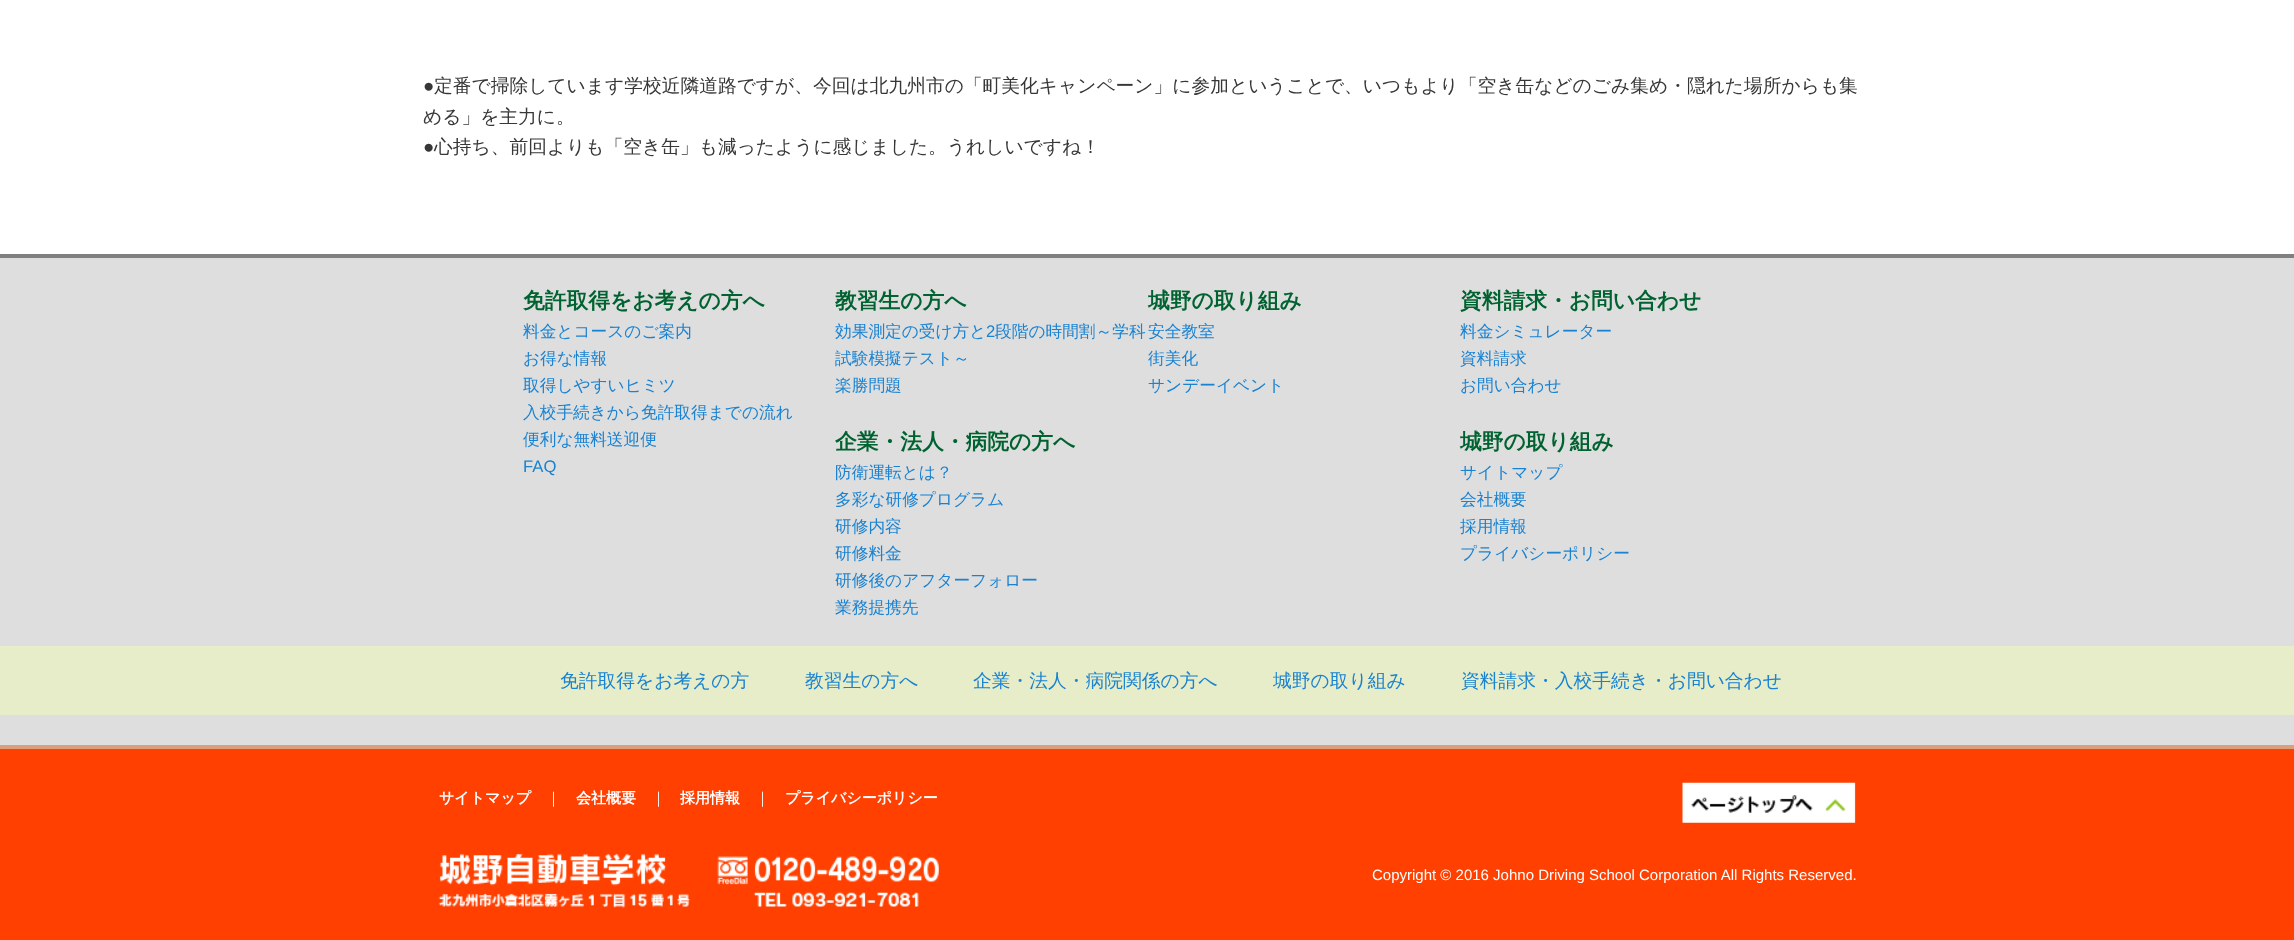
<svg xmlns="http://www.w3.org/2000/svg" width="2294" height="940">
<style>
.a{font:18.75px Liberation Sans;fill:#373737}
.b{font:500 18.75px WenQuanYi Zen Hei;fill:#373737}
.c{font:bold 21.75px WenQuanYi Zen Hei;fill:#006230}
.d{font:500 16.7px WenQuanYi Zen Hei;fill:#1982d1}
.e{font:16.7px Liberation Sans;fill:#1982d1}
.f{font:500 18.75px WenQuanYi Zen Hei;fill:#1982d1}
.g{font:bold 15px WenQuanYi Zen Hei;fill:#fff}
.h{font:500 15px WenQuanYi Zen Hei;fill:#fff}
.i{font:15px Liberation Sans;fill:#fff}
</style>
<rect width="100%" height="100%" fill="#fff"/>
<path fill="#dedede" d="M0 258h2294v487H0z"/>
<path fill="#808080" d="M0 254h2294v4H0z"/>
<path fill="#e6edc8" d="M0 646h2294v69H0z"/>
<path fill="#ff4000" d="M0 749h2294v191H0z"/>
<path fill="#dd9e7b" d="M0 745h2294v4H0z"/>
<image href="1.png" x="438" y="853" width="501" height="55"/>
<image href="2.png" x="1682" y="782" width="174" height="41"/>
<text class="a" x="423" y="92">●</text>
<text class="b" x="434" y="92">定番で掃除しています学校近隣道路ですが、今回は北九州市の「町美化キャンペーン」に参加ということで、いつもより「空き缶などのごみ集め・隠れた場所からも集</text>
<text class="b" x="423" y="123">める」を主力に。</text>
<text class="a" x="423" y="153">●</text>
<text class="b" x="434" y="153">心持ち、前回よりも「空き缶」も減ったように感じました。うれしいですね！</text>
<text class="c" x="523" y="308">免許取得をお考えの方へ</text>
<text class="d" x="523" y="337">料金とコースのご案内</text>
<text class="d" x="523" y="364">お得な情報</text>
<text class="d" x="523" y="391">取得しやすいヒミツ</text>
<text class="d" x="523" y="418">入校手続きから免許取得までの流れ</text>
<text class="d" x="523" y="445">便利な無料送迎便</text>
<text class="e" x="523" y="472">FAQ</text>
<text class="c" x="835" y="308">教習生の方へ</text>
<text class="d" x="835" y="337">効果測定の受け方と</text>
<text class="e" x="986" y="337">2</text>
<text class="d" x="995" y="337">段階の時間割～学科</text>
<text class="d" x="835" y="364">試験模擬テスト～</text>
<text class="d" x="835" y="391">楽勝問題</text>
<text class="c" x="835" y="449">企業・法人・病院の方へ</text>
<text class="d" x="835" y="478">防衛運転とは？</text>
<text class="d" x="835" y="505">多彩な研修プログラム</text>
<text class="d" x="835" y="532">研修内容</text>
<text class="d" x="835" y="559">研修料金</text>
<text class="d" x="835" y="586">研修後のアフターフォロー</text>
<text class="d" x="835" y="613">業務提携先</text>
<text class="c" x="1148" y="308">城野の取り組み</text>
<text class="d" x="1148" y="337">安全教室</text>
<text class="d" x="1148" y="364">街美化</text>
<text class="d" x="1148" y="391">サンデーイベント</text>
<text class="c" x="1460" y="308">資料請求・お問い合わせ</text>
<text class="d" x="1460" y="337">料金シミュレーター</text>
<text class="d" x="1460" y="364">資料請求</text>
<text class="d" x="1460" y="391">お問い合わせ</text>
<text class="c" x="1460" y="449">城野の取り組み</text>
<text class="d" x="1460" y="478">サイトマップ</text>
<text class="d" x="1460" y="505">会社概要</text>
<text class="d" x="1460" y="532">採用情報</text>
<text class="d" x="1460" y="559">プライバシーポリシー</text>
<text class="f" x="560" y="687">免許取得をお考えの方</text>
<text class="f" x="805" y="687">教習生の方へ</text>
<text class="f" x="973" y="687">企業・法人・病院関係の方へ</text>
<text class="f" x="1273" y="687">城野の取り組み</text>
<text class="f" x="1461" y="687">資料請求・入校手続き・お問い合わせ</text>
<text class="g" x="439" y="803">サイトマップ</text>
<text class="h" x="546" y="803">｜</text>
<text class="g" x="576" y="803">会社概要</text>
<text class="h" x="651" y="803">｜</text>
<text class="g" x="680" y="803">採用情報</text>
<text class="h" x="755" y="803">｜</text>
<text class="g" x="785" y="803">プライバシーポリシー</text>
<text class="i" x="1372" y="880">Copyright © 2016 Johno Driving School Corporation All Rights Reserved.</text>
</svg>
